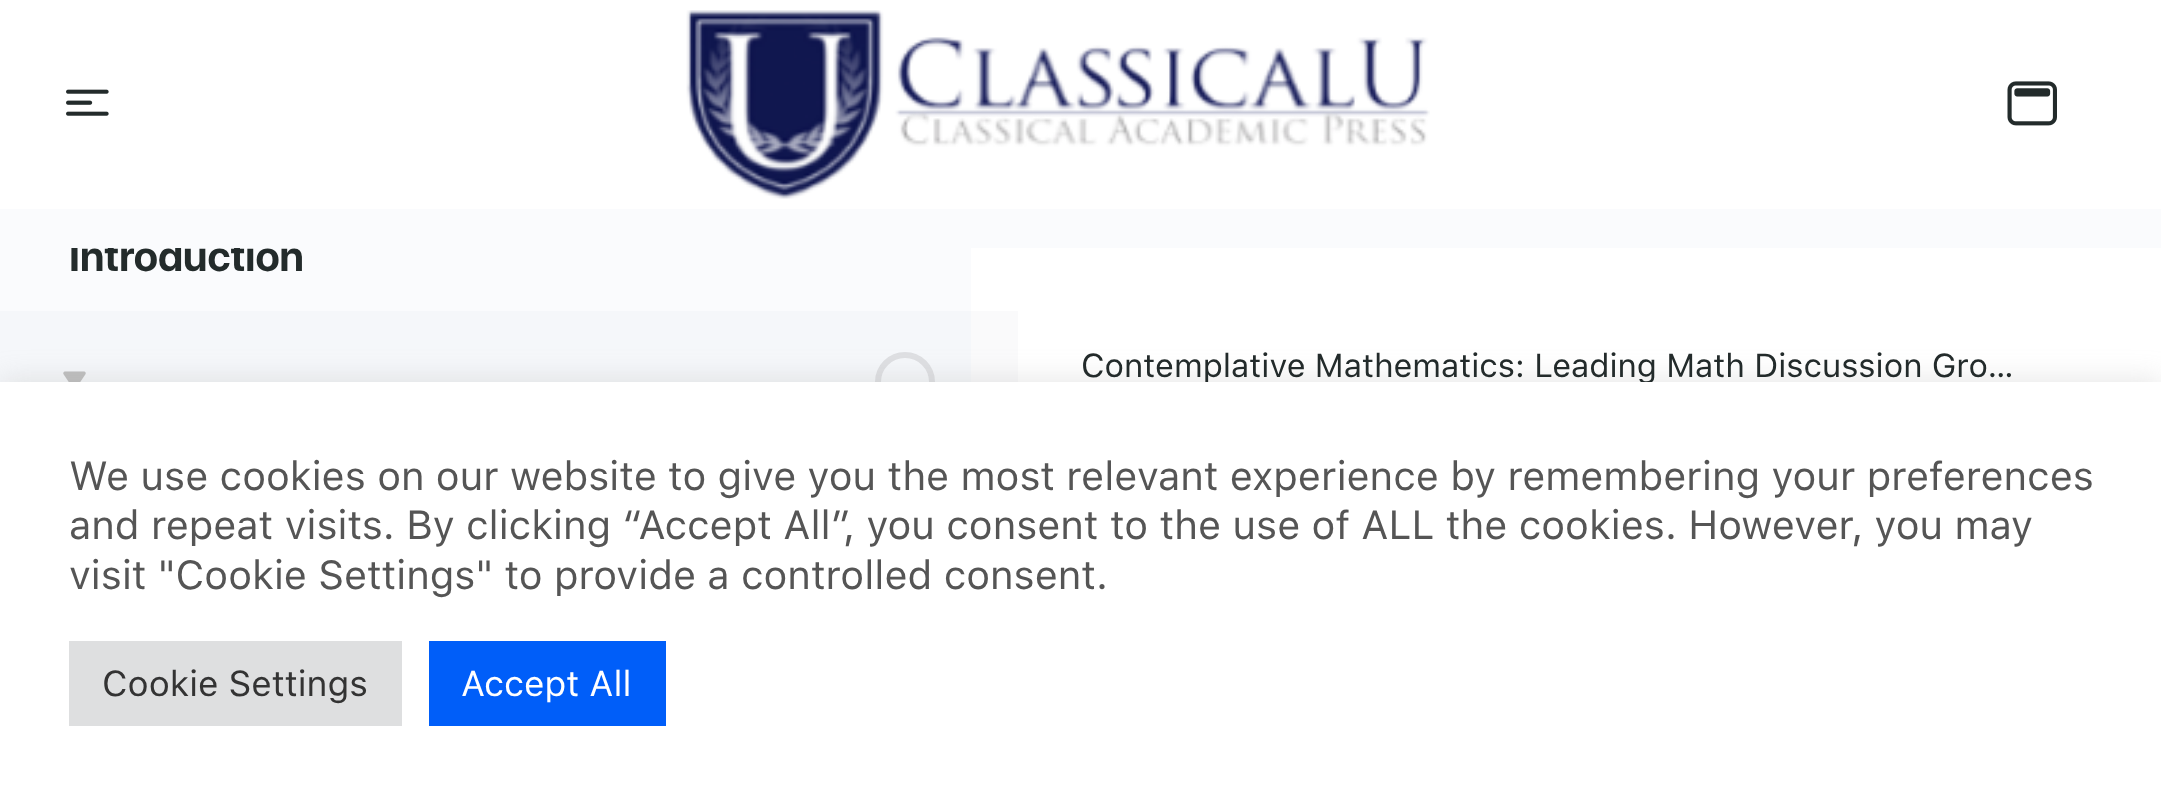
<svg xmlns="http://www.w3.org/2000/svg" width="2161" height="806">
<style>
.a{font:bold 41.25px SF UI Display;fill:#232b2b}
.b{font:33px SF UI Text;fill:#232b2b}
.c{font:40.33px SF UI Text;fill:#555}
.d{font:35.75px SF UI Text;fill:#333}
.e{font:35.75px SF UI Text;fill:#fff}
</style>
<defs>
<clipPath id="clip1"><path d="M69 248h866v49H69z"/></clipPath>
</defs>
<rect width="100%" height="100%" fill="#fafbfd"/>
<path fill="#f5f7fa" d="M0 311h971v71H0z"/>
<path fill="#fff" d="M0 0h2161v209H0z"/>
<image href="1.png" x="66" y="89" width="43" height="27"/>
<image href="2.png" x="686" y="10" width="744" height="189"/>
<image href="3.png" x="2007" y="81" width="50" height="45"/>
<image href="4.png" x="63" y="371" width="23" height="11"/>
<rect fill="none" stroke="#dedfe2" stroke-width="6" x="878" y="355" width="54" height="55" rx="27"/>
<path fill="#fff" d="M971 248h1190v134H971z"/>
<path fill="#fafafb" d="M971 311h47v71H971z"/>
<path fill="#acabab4d" filter="blur(14px)" d="M0 380h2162v426H0z"/>
<g clip-path="url(#clip1)">
<text class="a" x="69" y="271">Introduction</text>
</g>
<text class="b" x="1081" y="377">Contemplative Mathematics: Leading Math Discussion Gro…</text>
<path fill="#fff" d="M0 382h2161v424H0z"/>
<text class="c" x="69" y="490">We use cookies on our website to give you the most relevant experience by remembering your preferences</text>
<text class="c" x="69" y="539">and repeat visits. By clicking “Accept All”, you consent to the use of ALL the cookies. However, you may</text>
<text class="c" x="69" y="589">visit "Cookie Settings" to provide a controlled consent.</text>
<path fill="#dedfe0" d="M69 641h333v85H69z"/>
<text class="d" x="102" y="696">Cookie Settings</text>
<path fill="#005ef9" d="M429 641h237v85H429z"/>
<text class="e" x="461" y="696">Accept All</text>
</svg>
